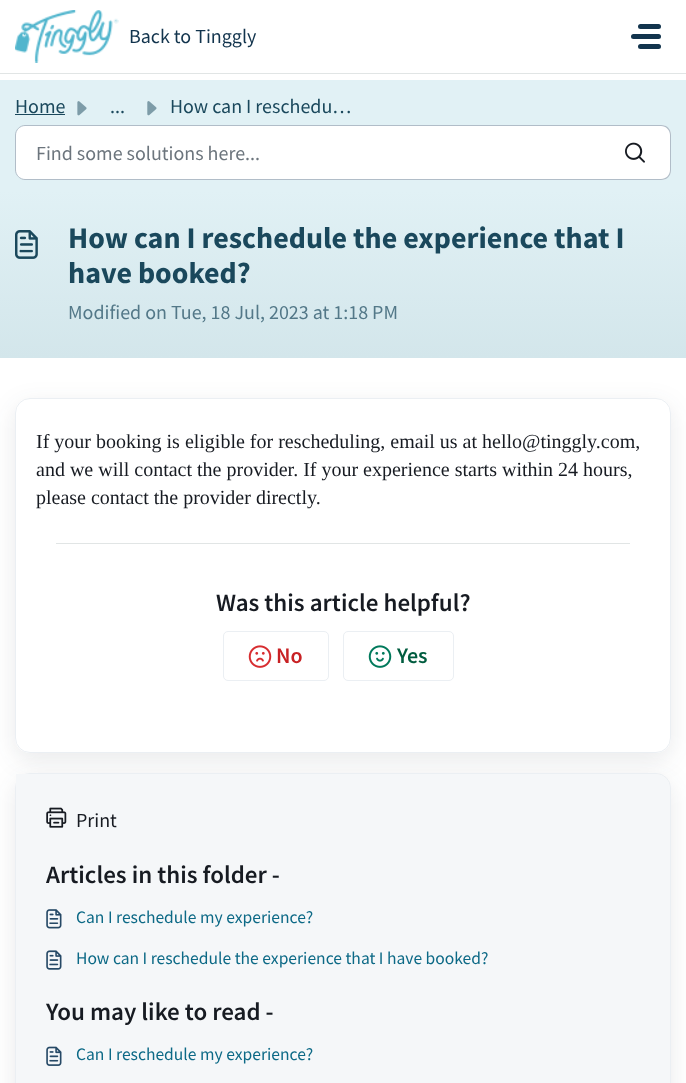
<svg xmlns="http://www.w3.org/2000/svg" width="686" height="1083">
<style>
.a{font:20px Source Sans Pro;fill:#12344d}
.b{font:20px Source Sans Pro;fill:#1a485c}
.c{font:20px Source Sans Pro;fill:#6c757d}
.d{font:bold 30px Source Sans Pro;fill:#1a485c}
.e{font:20px Source Sans Pro;fill:#537888}
.f{font:20px Liberation Serif;fill:#171b22}
.g{font:600 25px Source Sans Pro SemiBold;fill:#171b22}
.h{font:600 22px Source Sans Pro SemiBold;fill:#c82124}
.i{font:600 22px Source Sans Pro SemiBold;fill:#005c3f}
.j{font:20px Source Sans Pro;fill:#171b22}
.k{font:17.5px Source Sans Pro;fill:#0c6986}
</style>
<defs>
<linearGradient id="g1" gradientUnits="userSpaceOnUse" x1="343" y1="190" x2="343" y2="358"><stop offset="0" stop-color="#e1f1f5"/><stop offset="1" stop-color="#d3e6eb"/></linearGradient>
<clipPath id="clip1"><path d="M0 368h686v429h-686zm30 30h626c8.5 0 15 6.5 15 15v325c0 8.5-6.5 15-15 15h-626c-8.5 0-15-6.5-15-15v-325c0-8.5 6.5-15 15-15z" clip-rule="evenodd"/></clipPath>
</defs>
<rect width="100%" height="100%" fill="#fff"/>
<path fill="#e1e5e5" d="M0 73h686v1H0z"/>
<image href="1.png" x="15" y="10" width="104" height="53"/>
<rect fill="#12344d" x="638" y="24" width="23" height="5" rx="2.5"/>
<rect fill="#12344d" x="631" y="34" width="30" height="5" rx="2.5"/>
<rect fill="#12344d" x="638" y="44" width="23" height="5" rx="2.5"/>
<path fill="#e1f1f5" d="M0 80h686v110H0z"/>
<path fill="#1a485c" d="M15 114h50v1H15z"/>
<image href="2.png" x="77" y="101" width="10" height="15"/>
<image href="3.png" x="147" y="101" width="10" height="15"/>
<path fill="#fff" stroke="#b1bdc8" d="M25 125.5h575.5v54h-575.5c-5 0-9.5-4.5-9.5-9.5v-35c0-5 4.5-9.5 9.5-9.5z"/>
<path fill="#fff" d="M600 125h61c5.5 0 10 4.5 10 10v35c0 5.5-4.5 10-10 10h-61z"/>
<path fill="#b1bdc8" fill-rule="evenodd" d="M600 125h61c6 0 10 4 10 10v35c0 6-4 10-10 10h-61zm0 1h61c5 0 9 4 9 9v35c0 5-4 9-9 9h-61z"/>
<image href="4.png" x="625" y="142" width="20" height="21"/>
<path fill="url(#g1)" d="M0 190h686v168H0z"/>
<image href="5.png" x="15" y="230" width="23" height="29"/>
<g clip-path="url(#clip1)">
<rect fill="#27313a1a" filter="blur(12px)" x="15" y="405" width="656" height="355" rx="15"/>
</g>
<rect fill="none" stroke="#ebeff3" x="15.5" y="398.5" width="655" height="354" rx="14.5"/>
<path fill="#e1e5e5" d="M56 543h574v1H56z"/>
<rect fill="none" stroke="#ebeff3" x="223.5" y="631.5" width="105" height="49" rx="4.5"/>
<image href="6.png" x="248" y="645" width="24" height="23"/>
<rect fill="none" stroke="#ebeff3" x="343.5" y="631.5" width="110" height="49" rx="4.5"/>
<image href="7.png" x="368" y="645" width="24" height="23"/>
<rect fill="#27313a1a" filter="blur(12px)" x="15" y="780" width="656" height="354" rx="15"/>
<rect fill="none" stroke="#ebeff3" x="15.5" y="773.5" width="655" height="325" rx="14.5"/>
<path fill="#f5f7f9" d="M16 774h639c8.5 0 15 6.5 15 15v294c0 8.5-6.5 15-15 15h-639z"/>
<image href="8.png" x="46" y="807" width="21" height="21"/>
<image href="9.png" x="46" y="909" width="16" height="20"/>
<image href="10.png" x="46" y="950" width="16" height="20"/>
<image href="11.png" x="46" y="1046" width="16" height="20"/>
<text class="a" x="129" y="43">Back to Tinggly</text>
<text class="b" x="15" y="113">Home</text>
<text class="b" x="110" y="113">...</text>
<text class="b" x="170" y="113">How can I reschedu…</text>
<text class="c" x="36" y="160">Find some solutions here...</text>
<text class="d" x="68" y="248">How can I reschedule the experience that I</text>
<text class="d" x="68" y="283">have booked?</text>
<text class="e" x="68" y="319">Modified on Tue, 18 Jul, 2023 at 1:18 PM</text>
<text class="f" x="36" y="448">If your booking is eligible for rescheduling, email us at hello@tinggly.com,</text>
<text class="f" x="36" y="476">and we will contact the provider. If your experience starts within 24 hours,</text>
<text class="f" x="36" y="504">please contact the provider directly.</text>
<text class="g" x="216" y="611">Was this article helpful?</text>
<text class="h" x="276" y="663">No</text>
<text class="i" x="397" y="663">Yes</text>
<text class="j" x="76" y="827">Print</text>
<text class="g" x="46" y="883">Articles in this folder -</text>
<text class="k" x="76" y="923">Can I reschedule my experience?</text>
<text class="k" x="76" y="964">How can I reschedule the experience that I have booked?</text>
<text class="g" x="46" y="1020">You may like to read -</text>
<text class="k" x="76" y="1060">Can I reschedule my experience?</text>
</svg>
